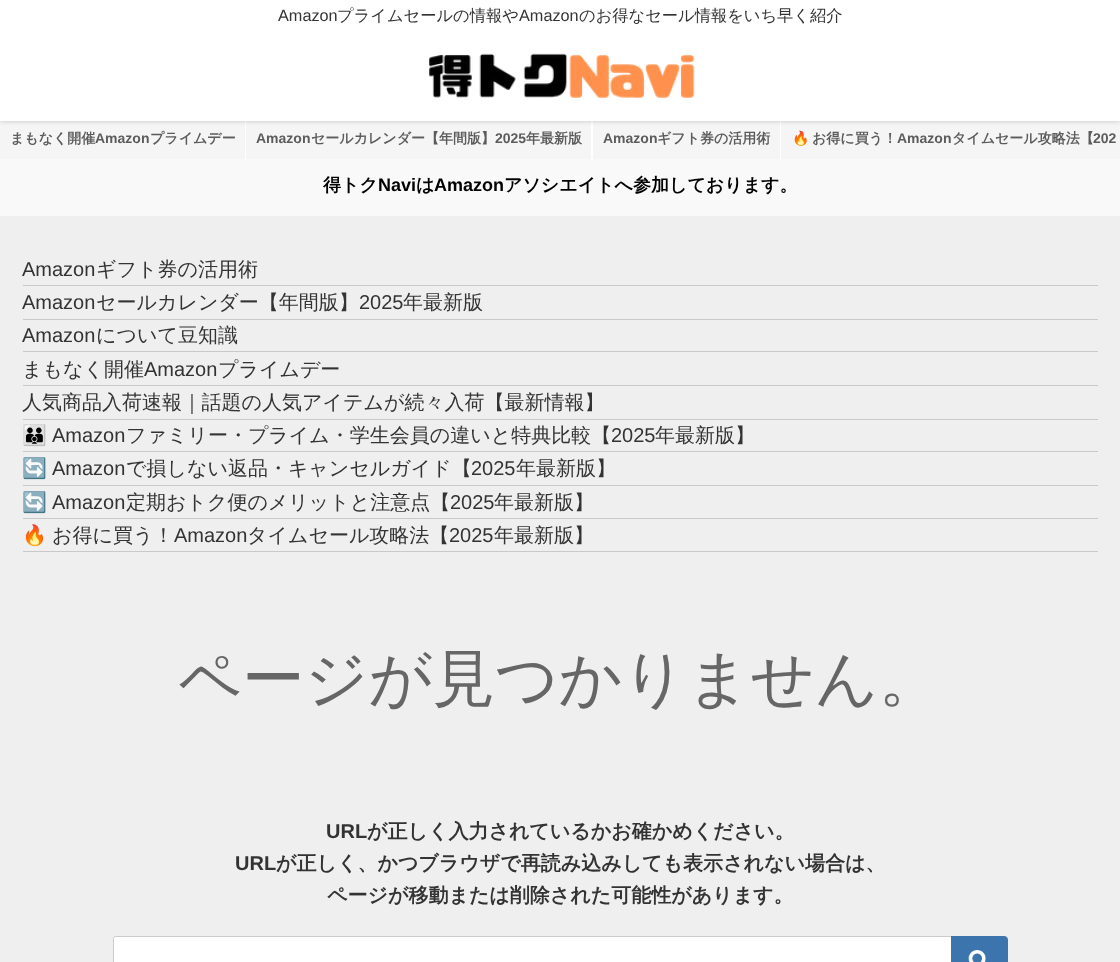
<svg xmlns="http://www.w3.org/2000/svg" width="1120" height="962">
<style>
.a{font:16.25px Liberation Sans;fill:#333}
.b{font:500 16.25px WenQuanYi Zen Hei;fill:#333}
.c{font:bold 14px WenQuanYi Zen Hei;fill:#5c5c5c}
.d{font:bold 14px Liberation Sans;fill:#5c5c5c}
.e{font:bold 14px Noto Color Emoji;fill:#5c5c5c}
.f{font:bold 18px WenQuanYi Zen Hei;fill:#000}
.g{font:bold 18px Liberation Sans;fill:#000}
.h{font:20px Liberation Sans;fill:#333}
.i{font:500 20px WenQuanYi Zen Hei;fill:#333}
.j{font:20px Noto Color Emoji;fill:#333}
.k{font:500 62.5px WenQuanYi Zen Hei;fill:#666}
.l{font:bold 20px Liberation Sans;fill:#333}
.m{font:bold 20px WenQuanYi Zen Hei;fill:#333}
</style>
<rect width="100%" height="100%" fill="#efefef"/>
<path fill="#fff" d="M245 121h536v38H245z"/>
<path fill="#f5f5f5" d="M0 121h245v38H0z"/>
<path fill="#f5f5f5" d="M246 121h345v38H246z"/>
<path fill="#f5f5f5" d="M593 121h187v38H593z"/>
<path fill="#f5f5f5" d="M781 121h339v38H781z"/>
<path fill="#00000033" filter="blur(2.5px)" d="M0 0h1120v121H0z"/>
<path fill="#fff" d="M0 0h1120v121H0z"/>
<image href="1.png" x="429" y="53" width="266" height="45"/>
<path fill="#f9f9f9" d="M0 159h1120v57H0z"/>
<path fill="#c9c9c9" d="M23 285h1075v1H23z"/>
<path fill="#c9c9c9" d="M23 319h1075v1H23z"/>
<path fill="#c9c9c9" d="M23 351h1075v1H23z"/>
<path fill="#c9c9c9" d="M23 385h1075v1H23z"/>
<path fill="#c9c9c9" d="M23 419h1075v1H23z"/>
<path fill="#c9c9c9" d="M23 451h1075v1H23z"/>
<path fill="#c9c9c9" d="M23 485h1075v1H23z"/>
<path fill="#c9c9c9" d="M23 518h1075v1H23z"/>
<path fill="#c9c9c9" d="M23 551h1075v1H23z"/>
<rect fill="#fff" stroke="#ccc" x="113.5" y="936.5" width="894" height="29" rx="2"/>
<path fill="#3c74ad" d="M951 936h53c2 0 4 2 4 4v22c0 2-2 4-4 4h-53z"/>
<image href="2.png" x="968" y="950" width="18" height="12"/>
<text class="a" x="278" y="21">Amazon</text>
<text class="b" x="337" y="21">プライムセールの情報や</text>
<text class="a" x="519" y="21">Amazon</text>
<text class="b" x="579" y="21">のお得なセール情報をいち早く紹介</text>
<text class="c" x="10" y="143">まもなく開催</text>
<text class="d" x="95" y="143">Amazon</text>
<text class="c" x="150" y="143">プライムデー</text>
<text class="d" x="256" y="143">Amazon</text>
<text class="c" x="311" y="143">セールカレンダー【年間版】</text>
<text class="d" x="495" y="143">2025</text>
<text class="c" x="526" y="143">年最新版</text>
<text class="d" x="603" y="143">Amazon</text>
<text class="c" x="657" y="143">ギフト券の活用術</text>
<text class="e" x="792" y="143">🔥</text>
<text class="c" x="812" y="143">お得に買う！</text>
<text class="d" x="897" y="143">Amazon</text>
<text class="c" x="952" y="143">タイムセール攻略法【</text>
<text class="d" x="1093" y="143">202</text>
<text class="f" x="323" y="191">得トク</text>
<text class="g" x="378" y="191">Navi</text>
<text class="f" x="416" y="191">は</text>
<text class="g" x="434" y="191">Amazon</text>
<text class="f" x="504" y="191">アソシエイトへ参加しております。</text>
<text class="h" x="22" y="276">Amazon</text>
<text class="i" x="96" y="276">ギフト券の活用術</text>
<text class="h" x="22" y="309">Amazon</text>
<text class="i" x="96" y="309">セールカレンダー【年間版】</text>
<text class="h" x="359" y="309">2025</text>
<text class="i" x="403" y="309">年最新版</text>
<text class="h" x="22" y="342">Amazon</text>
<text class="i" x="96" y="342">について豆知識</text>
<text class="i" x="22" y="376">まもなく開催</text>
<text class="h" x="144" y="376">Amazon</text>
<text class="i" x="218" y="376">プライムデー</text>
<text class="i" x="22" y="409">人気商品入荷速報｜話題の人気アイテムが続々入荷【最新情報】</text>
<text class="j" x="22" y="442">👪</text>
<text class="h" x="52" y="442">Amazon</text>
<text class="i" x="126" y="442">ファミリー・プライム・学生会員の違いと特典比較【</text>
<text class="h" x="611" y="442">2025</text>
<text class="i" x="655" y="442">年最新版】</text>
<text class="j" x="22" y="475">🔄</text>
<text class="h" x="52" y="475">Amazon</text>
<text class="i" x="126" y="475">で損しない返品・キャンセルガイド【</text>
<text class="h" x="471" y="475">2025</text>
<text class="i" x="516" y="475">年最新版】</text>
<text class="j" x="22" y="509">🔄</text>
<text class="h" x="52" y="509">Amazon</text>
<text class="i" x="126" y="509">定期おトク便のメリットと注意点【</text>
<text class="h" x="450" y="509">2025</text>
<text class="i" x="494" y="509">年最新版】</text>
<text class="j" x="22" y="542">🔥</text>
<text class="i" x="52" y="542">お得に買う！</text>
<text class="h" x="174" y="542">Amazon</text>
<text class="i" x="247" y="542">タイムセール攻略法【</text>
<text class="h" x="449" y="542">2025</text>
<text class="i" x="494" y="542">年最新版】</text>
<text class="k" x="178" y="700">ページが見つかりません。</text>
<text class="l" x="326" y="838">URL</text>
<text class="m" x="367" y="838">が正しく入力されているかお確かめください。</text>
<text class="l" x="235" y="870">URL</text>
<text class="m" x="276" y="870">が正しく、かつブラウザで再読み込みしても表示されない場合は、</text>
<text class="m" x="327" y="902">ページが移動または削除された可能性があります。</text>
</svg>
